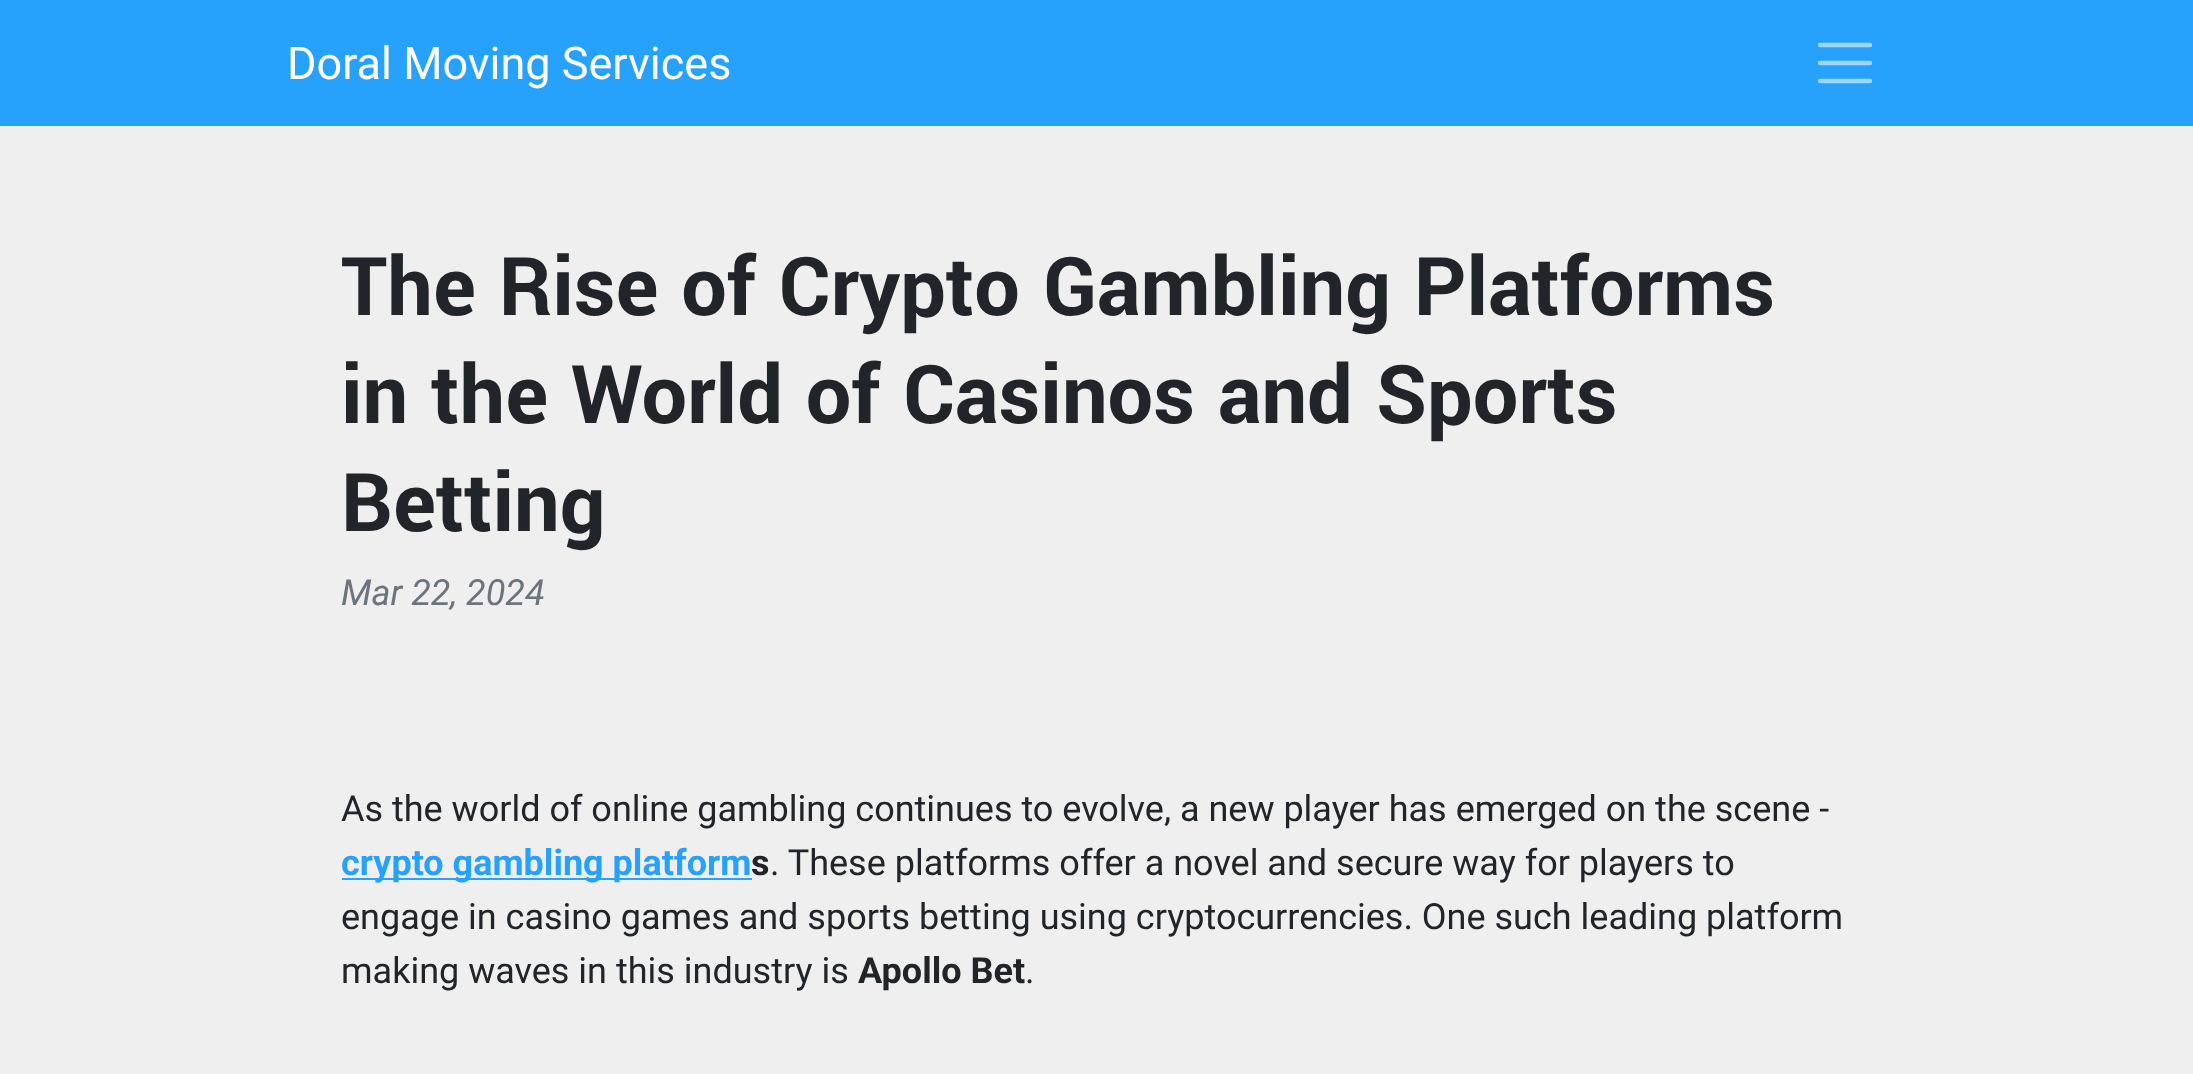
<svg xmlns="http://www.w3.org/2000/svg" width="2193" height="1074">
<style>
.a{font:45px Roboto;fill:#fff}
.b{font:bold 90px Yantramanav;fill:#212529}
.c{font:italic 36px Roboto;fill:#6c757d}
.d{font:36px Roboto;fill:#212529}
.e{font:bold 36px Roboto;fill:#27a2fc}
.f{font:bold 36px Roboto;fill:#212529}
</style>
<rect width="100%" height="100%" fill="#efefef"/>
<path fill="#27a2fc" d="M0 0h2193v126H0z"/>
<path fill="none" stroke="#9ed5fe" stroke-width="4.5" stroke-linecap="round" d="M1820 45h50m-50 18h50m-50 18h50"/>
<path fill="#27a2fc" d="M342 878h410v2H342z"/>
<text class="a" x="287" y="79">Doral Moving Services</text>
<text class="b" x="341" y="315">The Rise of Crypto Gambling Platforms</text>
<text class="b" x="341" y="423">in the World of Casinos and Sports</text>
<text class="b" x="341" y="531">Betting</text>
<text class="c" x="341" y="605">Mar 22, 2024</text>
<text class="d" x="341" y="821">As the world of online gambling continues to evolve, a new player has emerged on the scene -</text>
<text class="e" x="341" y="875">crypto gambling platform</text>
<text class="f" x="751" y="875">s</text>
<text class="d" x="770" y="875">. These platforms offer a novel and secure way for players to</text>
<text class="d" x="341" y="929">engage in casino games and sports betting using cryptocurrencies. One such leading platform</text>
<text class="d" x="341" y="983">making waves in this industry is</text>
<text class="f" x="858" y="983">Apollo Bet</text>
<text class="d" x="1025" y="983">.</text>
</svg>
